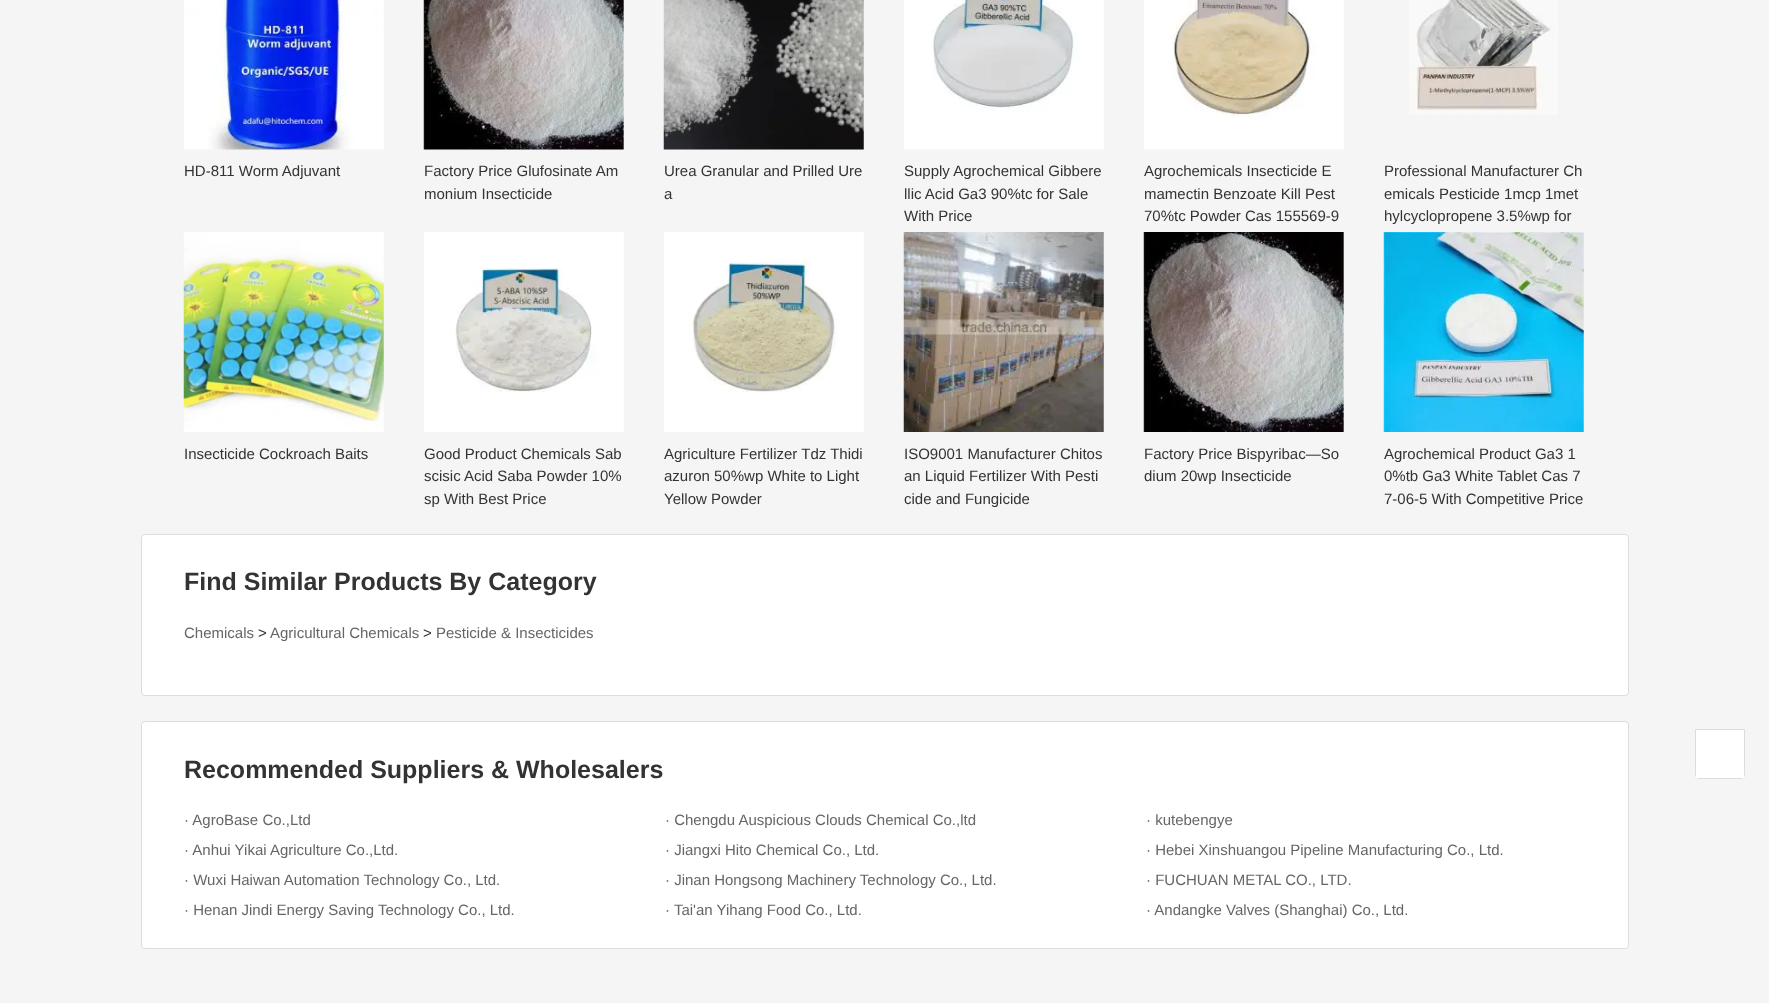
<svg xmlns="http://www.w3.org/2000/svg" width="1769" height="1003">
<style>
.a{font:15px Liberation Sans;fill:#333}
.b{font:bold 25px Liberation Sans;fill:#333}
.c{font:15px Liberation Sans;fill:#666}
</style>
<rect width="100%" height="100%" fill="#f5f5f5"/>
<image href="1.png" x="184" y="0" width="200" height="150"/>
<image href="2.png" x="423" y="0" width="201" height="150"/>
<image href="3.png" x="663" y="0" width="201" height="150"/>
<image href="4.png" x="904" y="0" width="200" height="150"/>
<image href="5.png" x="1144" y="0" width="200" height="150"/>
<image href="6.png" x="1409" y="0" width="149" height="115"/>
<image href="7.png" x="183" y="232" width="201" height="200"/>
<image href="8.png" x="424" y="232" width="200" height="200"/>
<image href="9.png" x="664" y="232" width="200" height="200"/>
<image href="10.png" x="903" y="232" width="201" height="200"/>
<image href="11.png" x="1143" y="232" width="201" height="200"/>
<image href="12.png" x="1383" y="232" width="201" height="200"/>
<rect fill="#fff" stroke="#ddd" x="141.5" y="534.5" width="1487" height="161" rx="3.5"/>
<rect fill="#fff" stroke="#ddd" x="141.5" y="721.5" width="1487" height="227" rx="3.5"/>
<path fill="none" stroke="#ddd" d="M1695.5 729.5h49v45.5c0 2-1.5 3.5-3.5 3.5h-42c-2 0-3.5-1.5-3.5-3.5z"/>
<path fill="#fff" d="M1696 730h48v48H1696z"/>
<text class="a" x="184" y="176">HD-811 Worm Adjuvant</text>
<text class="a" x="424" y="176">Factory Price Glufosinate Am</text>
<text class="a" x="424" y="199">monium Insecticide</text>
<text class="a" x="664" y="176">Urea Granular and Prilled Ure</text>
<text class="a" x="664" y="199">a</text>
<text class="a" x="904" y="176">Supply Agrochemical Gibbere</text>
<text class="a" x="904" y="199">llic Acid Ga3 90%tc for Sale</text>
<text class="a" x="904" y="221">With Price</text>
<text class="a" x="1144" y="176">Agrochemicals Insecticide E</text>
<text class="a" x="1144" y="199">mamectin Benzoate Kill Pest</text>
<text class="a" x="1144" y="221">70%tc Powder Cas 155569-9</text>
<text class="a" x="1384" y="176">Professional Manufacturer Ch</text>
<text class="a" x="1384" y="199">emicals Pesticide 1mcp 1met</text>
<text class="a" x="1384" y="221">hylcyclopropene 3.5%wp for</text>
<text class="a" x="184" y="459">Insecticide Cockroach Baits</text>
<text class="a" x="424" y="459">Good Product Chemicals Sab</text>
<text class="a" x="424" y="481">scisic Acid Saba Powder 10%</text>
<text class="a" x="424" y="504">sp With Best Price</text>
<text class="a" x="664" y="459">Agriculture Fertilizer Tdz Thidi</text>
<text class="a" x="664" y="481">azuron 50%wp White to Light</text>
<text class="a" x="664" y="504">Yellow Powder</text>
<text class="a" x="904" y="459">ISO9001 Manufacturer Chitos</text>
<text class="a" x="904" y="481">an Liquid Fertilizer With Pesti</text>
<text class="a" x="904" y="504">cide and Fungicide</text>
<text class="a" x="1144" y="459">Factory Price Bispyribac—So</text>
<text class="a" x="1144" y="481">dium 20wp Insecticide</text>
<text class="a" x="1384" y="459">Agrochemical Product Ga3 1</text>
<text class="a" x="1384" y="481">0%tb Ga3 White Tablet Cas 7</text>
<text class="a" x="1384" y="504">7-06-5 With Competitive Price</text>
<text class="b" x="184" y="590">Find Similar Products By Category</text>
<text class="c" x="184" y="638">Chemicals</text>
<text class="a" x="258" y="638">&gt;</text>
<text class="c" x="270" y="638">Agricultural Chemicals</text>
<text class="a" x="423" y="638">&gt;</text>
<text class="c" x="436" y="638">Pesticide &amp; Insecticides</text>
<text class="b" x="184" y="778">Recommended Suppliers &amp; Wholesalers</text>
<text class="c" x="184" y="825">· AgroBase Co.,Ltd</text>
<text class="c" x="665" y="825">· Chengdu Auspicious Clouds Chemical Co.,ltd</text>
<text class="c" x="1146" y="825">· kutebengye</text>
<text class="c" x="184" y="855">· Anhui Yikai Agriculture Co.,Ltd.</text>
<text class="c" x="665" y="855">· Jiangxi Hito Chemical Co., Ltd.</text>
<text class="c" x="1146" y="855">· Hebei Xinshuangou Pipeline Manufacturing Co., Ltd.</text>
<text class="c" x="184" y="885">· Wuxi Haiwan Automation Technology Co., Ltd.</text>
<text class="c" x="665" y="885">· Jinan Hongsong Machinery Technology Co., Ltd.</text>
<text class="c" x="1146" y="885">· FUCHUAN METAL CO., LTD.</text>
<text class="c" x="184" y="915">· Henan Jindi Energy Saving Technology Co., Ltd.</text>
<text class="c" x="665" y="915">· Tai'an Yihang Food Co., Ltd.</text>
<text class="c" x="1146" y="915">· Andangke Valves (Shanghai) Co., Ltd.</text>
</svg>
